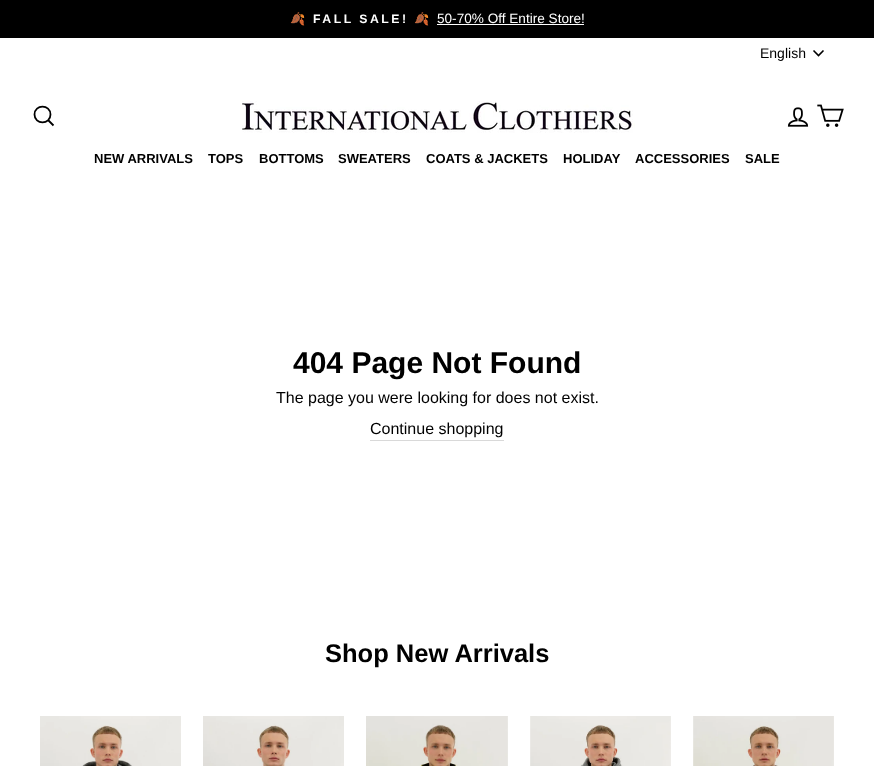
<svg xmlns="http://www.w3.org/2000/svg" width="874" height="766">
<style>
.a{font:bold 12.25px Noto Color Emoji;letter-spacing:2.5px;fill:#fff}
.b{font:bold 12.25px Liberation Sans;letter-spacing:2.5px;fill:#fff}
.c{font:13.6px Liberation Sans;fill:#fff}
.d{font:14px Liberation Sans;fill:#000}
.e{font:bold 13px Liberation Sans;fill:#000}
.f{font:bold 30px Liberation Sans;fill:#000}
.g{font:16px Liberation Sans;fill:#000}
.h{font:bold 25.5px Liberation Sans;fill:#000}
</style>
<rect width="100%" height="100%" fill="#fff"/>
<path fill="#000" d="M0 0h874v38H0z"/>
<path fill="#fff" d="M437 24h147v1H437z"/>
<path fill="none" stroke="#000" stroke-width="1.6" d="M813.5 50.5l5 5l5-5"/>
<path fill="none" stroke="#000" stroke-width="1.8" d="M50.5 114.5c0 10.5-16 10.5-16 0c0-10.5 16-10.5 16 0zm3 11l-5-5"/>
<image href="1.png" x="242" y="101" width="393" height="32"/>
<image href="2.png" x="787" y="107" width="22" height="20"/>
<image href="3.png" x="817" y="104" width="27" height="23"/>
<path fill="#d9d9d9" d="M370 440h134v1H370z"/>
<image href="4.png" x="40" y="716" width="141" height="50"/>
<image href="5.png" x="203" y="716" width="141" height="50"/>
<image href="6.png" x="366" y="716" width="142" height="50"/>
<image href="7.png" x="530" y="716" width="141" height="50"/>
<image href="8.png" x="693" y="716" width="141" height="50"/>
<text class="a" x="290" y="23">🍂</text>
<text class="b" x="313" y="23">FALL SALE!</text>
<text class="a" x="414" y="23">🍂</text>
<text class="c" x="437" y="23">50-70% Off Entire Store!</text>
<text class="d" x="760" y="58">English</text>
<text class="e" x="94" y="163">NEW ARRIVALS</text>
<text class="e" x="208" y="163">TOPS</text>
<text class="e" x="259" y="163">BOTTOMS</text>
<text class="e" x="338" y="163">SWEATERS</text>
<text class="e" x="426" y="163">COATS &amp; JACKETS</text>
<text class="e" x="563" y="163">HOLIDAY</text>
<text class="e" x="635" y="163">ACCESSORIES</text>
<text class="e" x="745" y="163">SALE</text>
<text class="f" x="293" y="373">404 Page Not Found</text>
<text class="g" x="276" y="403">The page you were looking for does not exist.</text>
<text class="g" x="370" y="434">Continue shopping</text>
<text class="h" x="325" y="662">Shop New Arrivals</text>
</svg>
